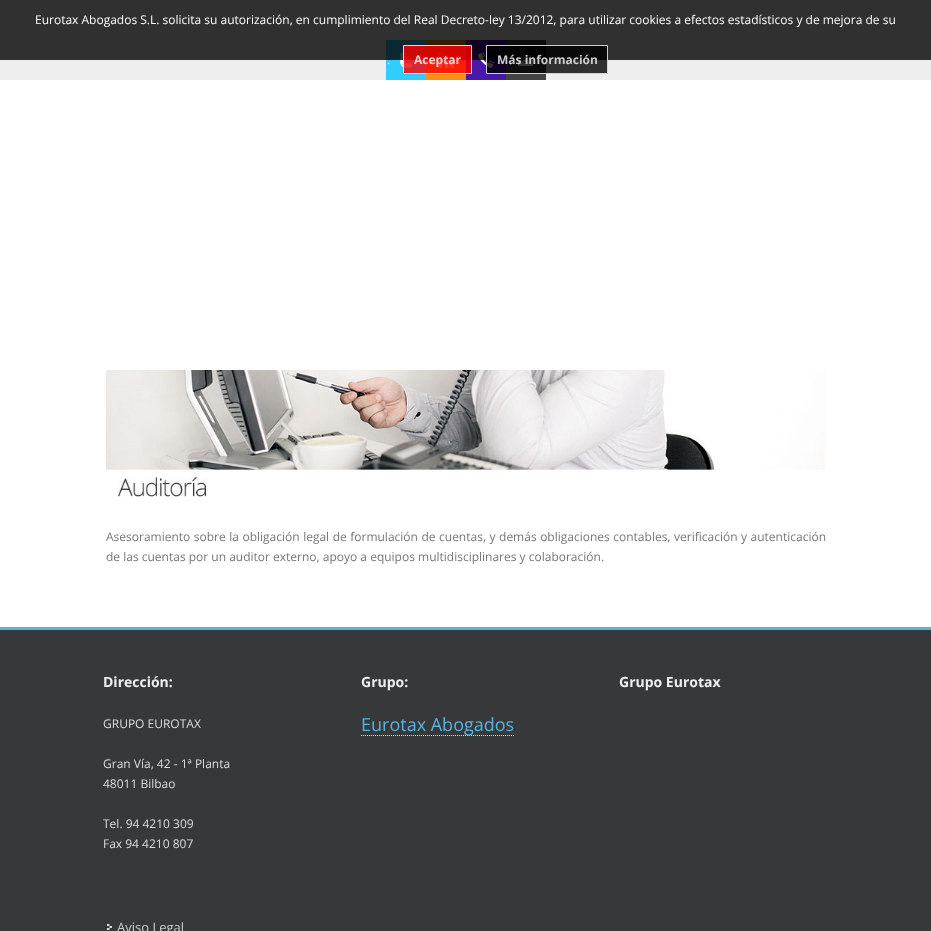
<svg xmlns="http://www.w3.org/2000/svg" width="931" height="931">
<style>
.a{font:12px Open Sans;fill:#fcfcfc}
.b{font:12px Open Sans;fill:#eee}
.c{font:bold 12px Open Sans;fill:#fad1cf}
.d{font:bold 12px Open Sans;fill:#ccc}
.e{font:12px Open Sans;fill:#777}
.f{font:bold 14px Open Sans;fill:#eee}
.g{font:12px Open Sans;fill:#ddd}
.h{font:13px Open Sans;fill:#ccc}
.i{font:18px Open Sans;fill:#57b3df}
</style>
<rect width="100%" height="100%" fill="#fff"/>
<path fill="#eee" d="M0 0h931v80H0z"/>
<path fill="#3cf" d="M386 40h40v40H386z"/>
<image href="1.png" x="400" y="52" width="12" height="16"/>
<path fill="#f88f16" d="M426 40h40v40H426z"/>
<image href="2.png" x="438" y="52" width="16" height="16"/>
<path fill="#4818ab" d="M466 40h40v40H466z"/>
<image href="3.png" x="478" y="52" width="16" height="16"/>
<path fill="#444" d="M506 40h40v40H506z"/>
<image href="4.png" x="518" y="55" width="15" height="11"/>
<path fill="#000000cc" d="M0 0h931v60H0z"/>
<path fill="#ff0000cc" d="M403 45h69v29H403z"/>
<path fill="none" stroke="#ffffffcc" d="M403.5 45.5h68v28H403.5z"/>
<path fill="#000000cc" d="M486 45h122v29H486z"/>
<path fill="none" stroke="#ffffffcc" d="M486.5 45.5h121v28H486.5z"/>
<image href="5.png" x="106" y="370" width="720" height="132"/>
<path fill="#363839" d="M0 630h931v301H0z"/>
<path fill="#57b3df" d="M0 627h931v3H0z"/>
<image href="6.png" x="107" y="924" width="5" height="6"/>
<path fill="none" stroke="#ddd" stroke-dasharray="1 1" d="M361 735.5h153"/>
<text class="a" x="35" y="24">Eurotax Abogados S.L. solicita su autorización, en cumplimiento del Real Decreto-ley 13/2012, para utilizar cookies a efectos estadísticos y de mejora de su</text>
<text class="b" x="387" y="64">.</text>
<text class="c" x="414" y="64">Aceptar</text>
<text class="d" x="497" y="64">Más información</text>
<text class="e" x="106" y="541" word-spacing="0.4">Asesoramiento sobre la obligación legal de formulación de cuentas, y demás obligaciones contables, verificación y autenticación</text>
<text class="e" x="106" y="561">de las cuentas por un auditor externo, apoyo a equipos multidisciplinares y colaboración.</text>
<text class="f" x="103" y="687">Dirección:</text>
<text class="g" x="103" y="728">GRUPO EUROTAX</text>
<text class="g" x="103" y="768">Gran Vía, 42 - 1ª Planta</text>
<text class="g" x="103" y="788">48011 Bilbao</text>
<text class="g" x="103" y="828">Tel. 94 4210 309</text>
<text class="g" x="103" y="848">Fax 94 4210 807</text>
<text class="h" x="117" y="932">Aviso Legal</text>
<text class="f" x="361" y="687">Grupo:</text>
<text class="i" x="361" y="731">Eurotax Abogados</text>
<text class="f" x="619" y="687">Grupo Eurotax</text>
</svg>
